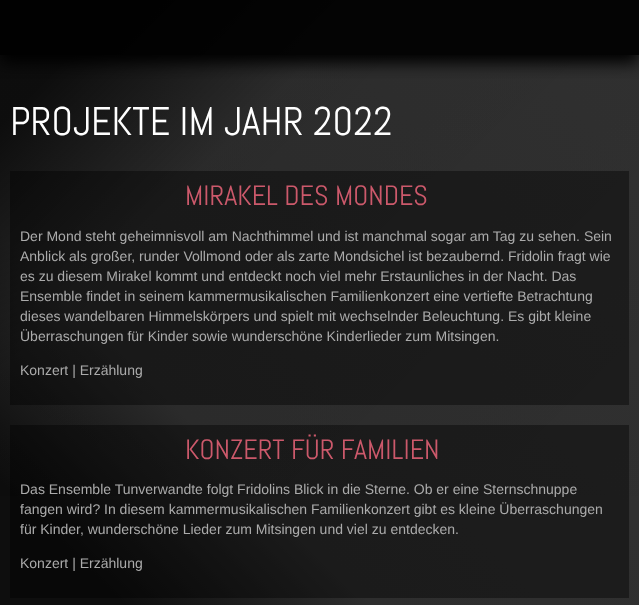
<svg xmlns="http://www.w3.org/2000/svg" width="639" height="605">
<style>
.a{font:40px Abel;fill:#fff}
.b{font:28px Abel;fill:#cc596b}
.c{font:14px Liberation Sans;fill:#ababab}
</style>
<defs>
<linearGradient id="g1" gradientUnits="userSpaceOnUse" x1="9" y1="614" x2="631" y2="-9"><stop offset="0" stop-color="#0e0e0e"/><stop offset="0.1" stop-color="#0e0e0e"/><stop offset="0.3" stop-color="#2e2e2e"/><stop offset="1" stop-color="#333"/></linearGradient>
<linearGradient id="g2" gradientUnits="userSpaceOnUse" x1="8" y1="-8" x2="631" y2="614"><stop offset="0" stop-color="#000" stop-opacity="0.72"/><stop offset="0.1" stop-color="#000" stop-opacity="0.72"/><stop offset="0.3" stop-color="#000" stop-opacity="0.1"/><stop offset="1" stop-color="#000" stop-opacity="0"/></linearGradient>
<clipPath id="clip1"><path d="M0 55h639v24H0z"/></clipPath>
</defs>
<rect width="100%" height="100%" fill="#fff"/>
<path fill="url(#g1)" d="M0 0h639v605H0z"/>
<path fill="url(#g2)" d="M0 0h639v496H0z"/>
<g clip-path="url(#clip1)">
<path fill="#000" filter="blur(8px)" d="M0 8h639v55H0z"/>
</g>
<path fill="#000000e6" d="M0 0h639v55H0z"/>
<path fill="#00000066" d="M10 171h619v234H10z"/>
<path fill="#00000066" d="M10 425h619v173H10z"/>
<text class="a" x="10" y="135">PROJEKTE IM JAHR 2022</text>
<text class="b" x="185" y="205">MIRAKEL DES MONDES</text>
<text class="c" x="20" y="241">Der Mond steht geheimnisvoll am Nachthimmel und ist manchmal sogar am Tag zu sehen. Sein</text>
<text class="c" x="20" y="261">Anblick als großer, runder Vollmond oder als zarte Mondsichel ist bezaubernd. Fridolin fragt wie</text>
<text class="c" x="20" y="281">es zu diesem Mirakel kommt und entdeckt noch viel mehr Erstaunliches in der Nacht. Das</text>
<text class="c" x="20" y="301">Ensemble findet in seinem kammermusikalischen Familienkonzert eine vertiefte Betrachtung</text>
<text class="c" x="20" y="321">dieses wandelbaren Himmelskörpers und spielt mit wechselnder Beleuchtung. Es gibt kleine</text>
<text class="c" x="20" y="341">Überraschungen für Kinder sowie wunderschöne Kinderlieder zum Mitsingen.</text>
<text class="c" x="20" y="375">Konzert | Erzählung</text>
<text class="b" x="185" y="459">KONZERT FÜR FAMILIEN</text>
<text class="c" x="20" y="494">Das Ensemble Tunverwandte folgt Fridolins Blick in die Sterne. Ob er eine Sternschnuppe</text>
<text class="c" x="20" y="514">fangen wird? In diesem kammermusikalischen Familienkonzert gibt es kleine Überraschungen</text>
<text class="c" x="20" y="534">für Kinder, wunderschöne Lieder zum Mitsingen und viel zu entdecken.</text>
<text class="c" x="20" y="568">Konzert | Erzählung</text>
</svg>
